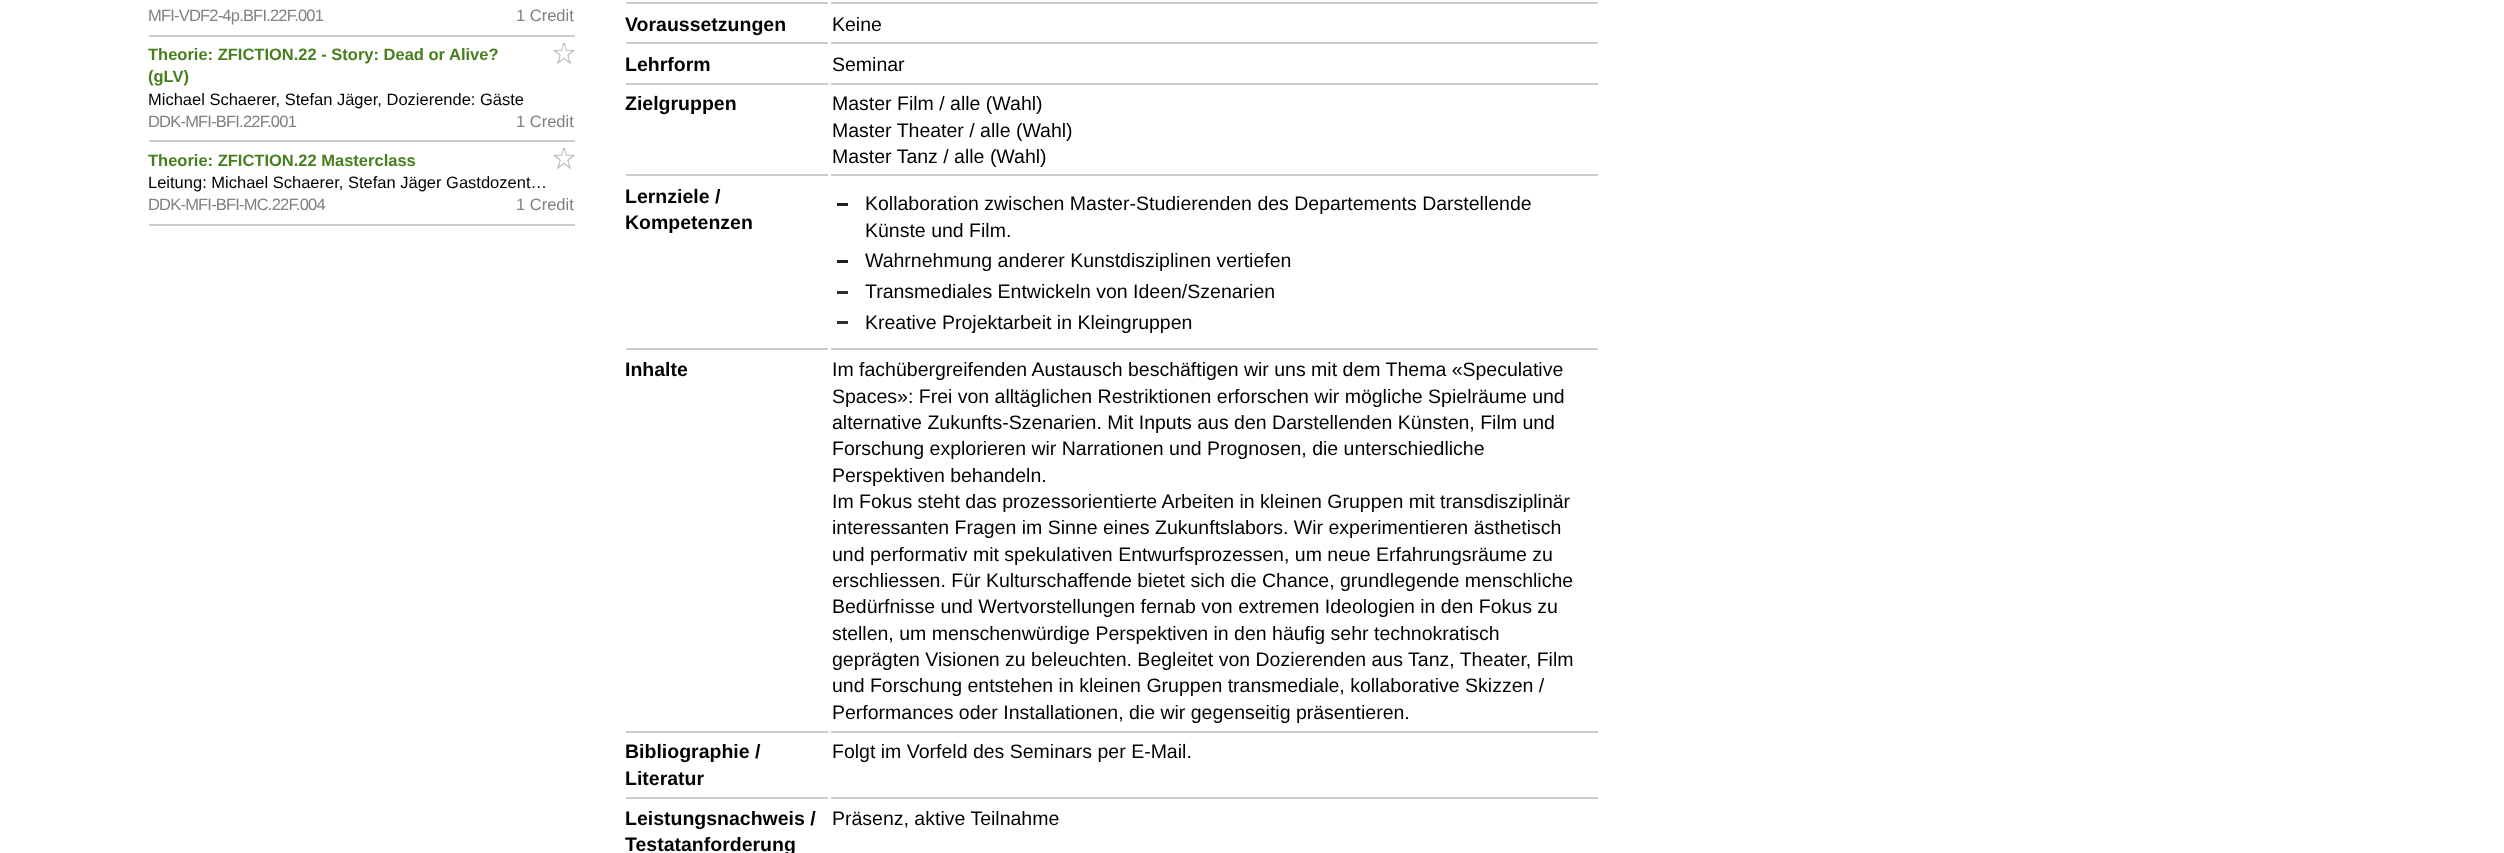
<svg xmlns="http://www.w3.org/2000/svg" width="2504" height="853">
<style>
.a{font:16.5px Liberation Sans;letter-spacing:-0.8px;fill:#808080}
.b{font:16.5px Liberation Sans;fill:#808080}
.c{font:bold 16.5px Liberation Sans;fill:#477e1e}
.d{font:16.5px Liberation Sans;fill:#000}
.e{font:bold 19.5px Liberation Sans;fill:#000}
.f{font:19.5px Liberation Sans;fill:#000}
</style>
<rect width="100%" height="100%" fill="#fff"/>
<path fill="#ccc" d="M149 35h426v2H149z"/>
<path fill="#ccc" d="M149 140h426v2H149z"/>
<image href="1.png" x="553" y="43" width="22" height="21"/>
<path fill="#ccc" d="M149 224h426v2H149z"/>
<image href="1.png" x="553" y="148" width="22" height="21"/>
<path fill="#ccc" d="M626 2h202v2H626z"/>
<path fill="#ccc" d="M831 2h767v2H831z"/>
<path fill="#ccc" d="M626 42h202v2H626z"/>
<path fill="#ccc" d="M831 42h767v2H831z"/>
<path fill="#ccc" d="M626 83h202v2H626z"/>
<path fill="#ccc" d="M831 83h767v2H831z"/>
<path fill="#ccc" d="M626 174h202v2H626z"/>
<path fill="#ccc" d="M831 174h767v2H831z"/>
<path fill="#ccc" d="M626 348h202v2H626z"/>
<path fill="#ccc" d="M831 348h767v2H831z"/>
<path fill="#212121" d="M837 203h11v3H837z"/>
<path fill="#212121" d="M837 260h11v3H837z"/>
<path fill="#303030" d="M837 291h11v3H837z"/>
<path fill="#303030" d="M837 321h11v3H837z"/>
<path fill="#ccc" d="M626 731h202v2H626z"/>
<path fill="#ccc" d="M831 731h767v2H831z"/>
<path fill="#ccc" d="M626 797h202v2H626z"/>
<path fill="#ccc" d="M831 797h767v2H831z"/>
<text class="a" x="148" y="21">MFI-VDF2-4p.BFI.22F.001</text>
<text class="b" x="516" y="21">1 Credit</text>
<text class="c" x="148" y="60">Theorie: ZFICTION.22 - Story: Dead or Alive?</text>
<text class="c" x="148" y="82">(gLV)</text>
<text class="d" x="148" y="105">Michael Schaerer, Stefan Jäger, Dozierende: Gäste</text>
<text class="a" x="148" y="127">DDK-MFI-BFI.22F.001</text>
<text class="b" x="516" y="127">1 Credit</text>
<text class="c" x="148" y="166">Theorie: ZFICTION.22 Masterclass</text>
<text class="d" x="148" y="188">Leitung: Michael Schaerer, Stefan Jäger Gastdozent…</text>
<text class="a" x="148" y="210">DDK-MFI-BFI-MC.22F.004</text>
<text class="b" x="516" y="210">1 Credit</text>
<text class="e" x="625" y="31">Voraussetzungen</text>
<text class="f" x="832" y="31">Keine</text>
<text class="e" x="625" y="71">Lehrform</text>
<text class="f" x="832" y="71">Seminar</text>
<text class="e" x="625" y="110">Zielgruppen</text>
<text class="f" x="832" y="110">Master Film / alle (Wahl)</text>
<text class="f" x="832" y="137">Master Theater / alle (Wahl)</text>
<text class="f" x="832" y="163">Master Tanz / alle (Wahl)</text>
<text class="e" x="625" y="203">Lernziele /</text>
<text class="e" x="625" y="229">Kompetenzen</text>
<text class="f" x="865" y="210">Kollaboration zwischen Master-Studierenden des Departements Darstellende</text>
<text class="f" x="865" y="237">Künste und Film.</text>
<text class="f" x="865" y="267">Wahrnehmung anderer Kunstdisziplinen vertiefen</text>
<text class="f" x="865" y="298">Transmediales Entwickeln von Ideen/Szenarien</text>
<text class="f" x="865" y="329">Kreative Projektarbeit in Kleingruppen</text>
<text class="e" x="625" y="376">Inhalte</text>
<text class="f" x="832" y="376">Im fachübergreifenden Austausch beschäftigen wir uns mit dem Thema «Speculative</text>
<text class="f" x="832" y="403">Spaces»: Frei von alltäglichen Restriktionen erforschen wir mögliche Spielräume und</text>
<text class="f" x="832" y="429">alternative Zukunfts-Szenarien. Mit Inputs aus den Darstellenden Künsten, Film und</text>
<text class="f" x="832" y="455">Forschung explorieren wir Narrationen und Prognosen, die unterschiedliche</text>
<text class="f" x="832" y="482">Perspektiven behandeln.</text>
<text class="f" x="832" y="508">Im Fokus steht das prozessorientierte Arbeiten in kleinen Gruppen mit transdisziplinär</text>
<text class="f" x="832" y="534">interessanten Fragen im Sinne eines Zukunftslabors. Wir experimentieren ästhetisch</text>
<text class="f" x="832" y="561">und performativ mit spekulativen Entwurfsprozessen, um neue Erfahrungsräume zu</text>
<text class="f" x="832" y="587">erschliessen. Für Kulturschaffende bietet sich die Chance, grundlegende menschliche</text>
<text class="f" x="832" y="613">Bedürfnisse und Wertvorstellungen fernab von extremen Ideologien in den Fokus zu</text>
<text class="f" x="832" y="640">stellen, um menschenwürdige Perspektiven in den häufig sehr technokratisch</text>
<text class="f" x="832" y="666">geprägten Visionen zu beleuchten. Begleitet von Dozierenden aus Tanz, Theater, Film</text>
<text class="f" x="832" y="692">und Forschung entstehen in kleinen Gruppen transmediale, kollaborative Skizzen /</text>
<text class="f" x="832" y="719">Performances oder Installationen, die wir gegenseitig präsentieren.</text>
<text class="e" x="625" y="758">Bibliographie /</text>
<text class="e" x="625" y="785">Literatur</text>
<text class="f" x="832" y="758">Folgt im Vorfeld des Seminars per E-Mail.</text>
<text class="e" x="625" y="825">Leistungsnachweis /</text>
<text class="e" x="625" y="851">Testatanforderung</text>
<text class="f" x="832" y="825">Präsenz, aktive Teilnahme</text>
</svg>
